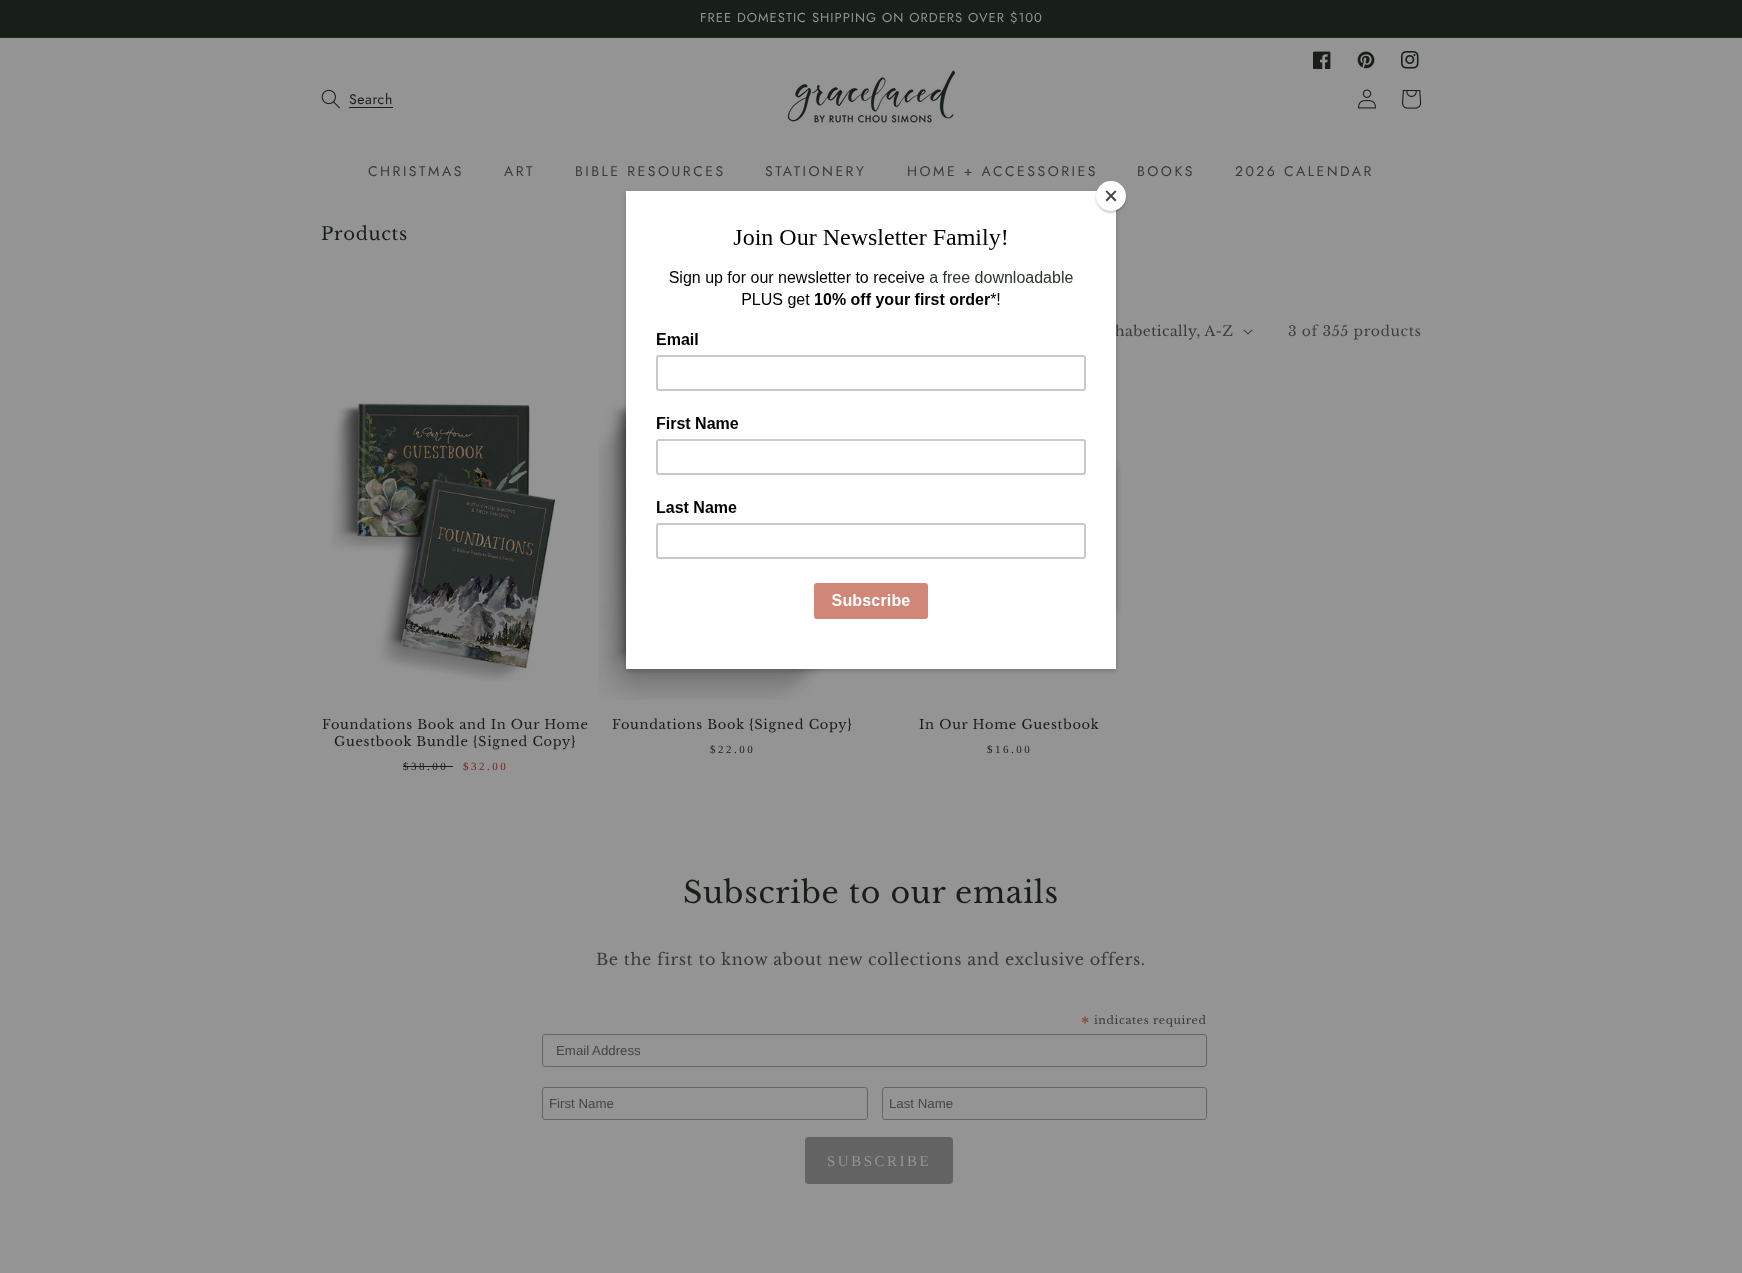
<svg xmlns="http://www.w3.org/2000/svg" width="1742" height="1273">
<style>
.a{font:13px Jost;letter-spacing:1px;fill:#949494}
.b{font:14px Jost;letter-spacing:0.6px;fill:#181f19}
.c{font:14px Jost;letter-spacing:2.5px;fill:#373c38}
.d{font:18px Libre Baskerville;letter-spacing:0.7px;fill:#181f19}
.e{font:14px Libre Baskerville;letter-spacing:0.4px;fill:#373c38}
.f{font:14px Libre Baskerville;letter-spacing:0.6px;fill:#3d423e}
.g{font:13px Libre Baskerville;letter-spacing:0.7px;fill:#181f19}
.h{font:11px Liberation Serif;letter-spacing:2.5px;fill:#181f19}
.i{font:11px Liberation Serif;letter-spacing:2.5px;fill:#731f17}
.j{font:30px Libre Baskerville;letter-spacing:0.7px;fill:#181f19}
.k{font:16px Libre Baskerville;letter-spacing:0.6px;fill:#373c38}
.l{font:16px Libre Baskerville;letter-spacing:0.6px;fill:#873526}
.m{font:11px Libre Baskerville;letter-spacing:0.6px;fill:#373c38}
.n{font:13.25px Liberation Sans;fill:#444}
.o{font:15px Liberation Serif;letter-spacing:2.5px;fill:#949494}
</style>
<rect width="100%" height="100%" fill="#949494"/>
<path fill="#181f19" d="M0 0h1742v37H0z"/>
<path fill="#222923" d="M0 37h1742v1H0z"/>
<image href="1.png" x="1313" y="51" width="18" height="18"/>
<image href="2.png" x="1357" y="51" width="18" height="18"/>
<image href="3.png" x="1401" y="51" width="18" height="18"/>
<image href="4.png" x="321" y="89" width="19" height="20"/>
<path fill="#181f19" d="M349 107h44v1H349z"/>
<image href="5.png" x="787" y="70" width="169" height="53"/>
<image href="6.png" x="1358" y="89" width="18" height="20"/>
<image href="7.png" x="1402" y="90" width="20" height="19"/>
<image href="11.png" x="598" y="400" width="234" height="300"/>
<image href="12.png" x="1116" y="456" width="5" height="162"/>
<path fill="#00000033" filter="blur(2px)" d="M626 193h490v478H626z"/>
<image href="9.png" x="1243" y="329" width="10" height="6"/>
<image href="10.png" x="331" y="403" width="225" height="279"/>
<path fill="#181f19" d="M403 766h50v1H403z"/>
<rect fill="none" stroke="#636667" x="542.5" y="1034.5" width="664" height="32" rx="2.5"/>
<rect fill="none" stroke="#636667" x="542.5" y="1087.5" width="325" height="32" rx="2.5"/>
<rect fill="none" stroke="#636667" x="882.5" y="1087.5" width="324" height="32" rx="2.5"/>
<rect fill="#636363" x="805" y="1137" width="148" height="47" rx="4"/>
<text class="a" x="700" y="22">FREE DOMESTIC SHIPPING ON ORDERS OVER $100</text>
<text class="b" x="349" y="104">Search</text>
<text class="c" x="368" y="176">CHRISTMAS</text>
<text class="c" x="504" y="176">ART</text>
<text class="c" x="575" y="176">BIBLE RESOURCES</text>
<text class="c" x="765" y="176">STATIONERY</text>
<text class="c" x="907" y="176">HOME + ACCESSORIES</text>
<text class="c" x="1137" y="176">BOOKS</text>
<text class="c" x="1235" y="176">2026 CALENDAR</text>
<text class="d" x="321" y="240">Products</text>
<text class="e" x="1115" y="336">habetically, A-Z</text>
<image href="8.png" x="626" y="191" width="490" height="478"/>
<rect fill="#00000033" filter="blur(1px)" x="1096" y="183" width="30" height="30" rx="15"/>
<circle fill="#fff" cx="1111" cy="196" r="15"/>
<path fill="#414141" d="M1115 190.5l1.5 1l-9.5 10l-1.5-1.5z"/>
<path fill="#414141" d="M1105.5 191.5l1.5-1l9.5 9.5l-1.5 1.5z"/>
<text class="f" x="1288" y="336">3 of 355 products</text>
<text class="g" x="322" y="729">Foundations Book and In Our Home</text>
<text class="g" x="334" y="746">Guestbook Bundle {Signed Copy}</text>
<text class="h" x="403" y="770">$38.00</text>
<text class="i" x="463" y="770">$32.00</text>
<text class="g" x="612" y="729">Foundations Book {Signed Copy}</text>
<text class="h" x="710" y="753">$22.00</text>
<text class="g" x="919" y="729">In Our Home Guestbook</text>
<text class="h" x="987" y="753">$16.00</text>
<text class="j" x="683" y="903">Subscribe to our emails</text>
<text class="k" x="596" y="965">Be the first to know about new collections and exclusive offers.</text>
<text class="l" x="1081" y="1029">*</text>
<text class="m" x="1094" y="1024">indicates required</text>
<text class="n" x="556" y="1055">Email Address</text>
<text class="n" x="549" y="1108">First Name</text>
<text class="n" x="889" y="1108">Last Name</text>
<text class="o" x="827" y="1166">SUBSCRIBE</text>
</svg>
